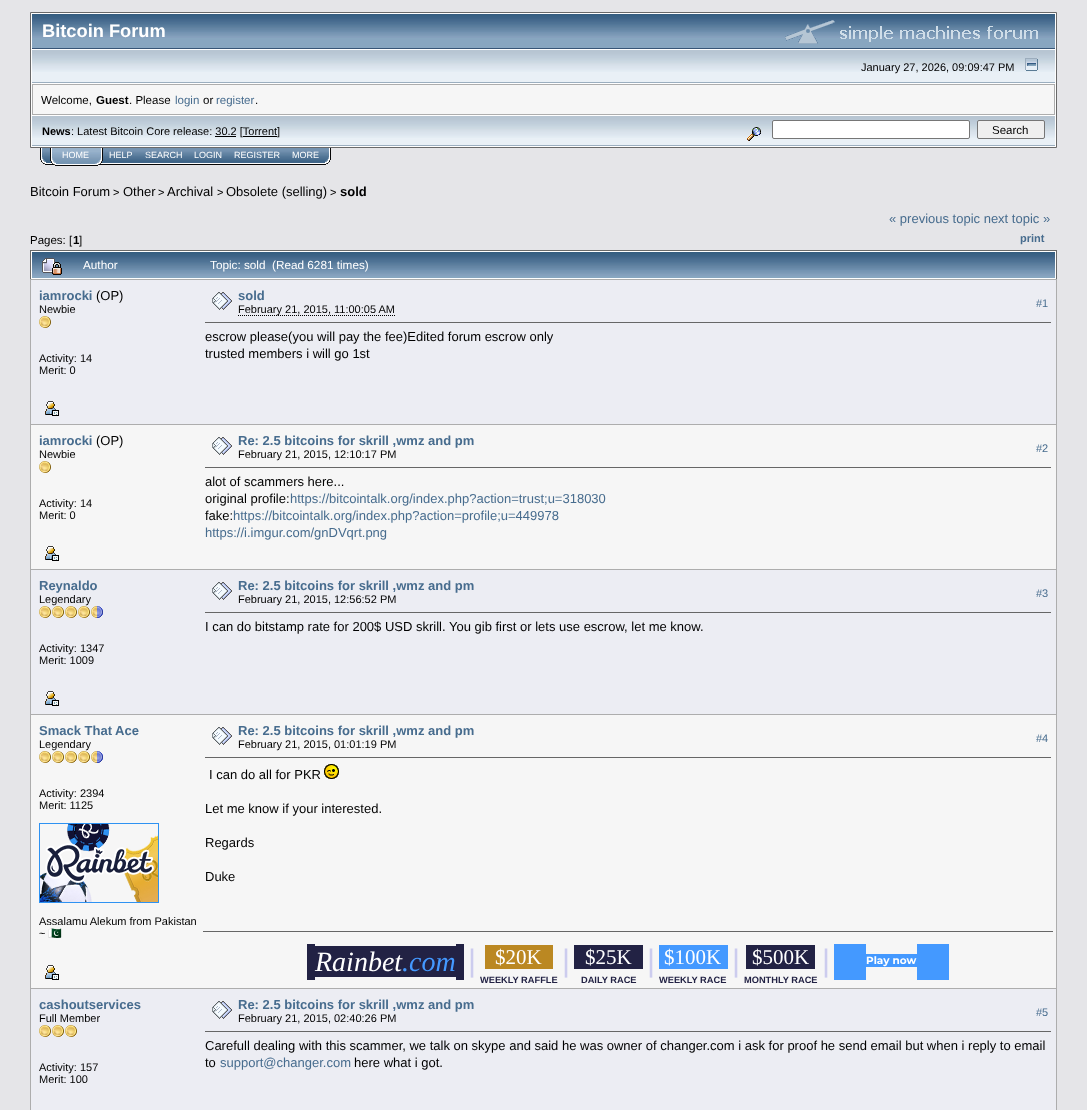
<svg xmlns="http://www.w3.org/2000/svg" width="1087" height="1110">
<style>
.a{font:bold 18.25px Liberation Sans;fill:#fff}
.b{font:11px Liberation Sans;fill:#000}
.c{font:11.5px Liberation Sans;fill:#000}
.d{font:bold 11.5px Liberation Sans;fill:#000}
.e{font:11.5px Liberation Sans;fill:#476c8e}
.f{font:bold 11px Liberation Sans;fill:#000}
.g{font:9px Liberation Sans;fill:#fff}
.h{font:13px Liberation Sans;fill:#000}
.i{font:bold 13px Liberation Sans;fill:#000}
.j{font:13px Liberation Sans;fill:#476c8e}
.k{font:bold 11px Liberation Sans;fill:#476c8e}
.l{font:11.75px Liberation Sans;fill:#fff}
.m{font:bold 13px Liberation Sans;fill:#476c8e}
.n{font:11px Liberation Sans;fill:#476c8e}
.o{font:11px Noto Color Emoji;fill:#000}
.p{font:italic 28px Liberation Serif;fill:#fff}
.q{font:italic 28px Liberation Serif;fill:#49f}
.r{font:31px Liberation Sans;fill:#cce}
.s{font:21px Liberation Serif;fill:#fff}
.t{font:bold 9.25px Liberation Sans;fill:#224}
.u{font:bold 10.5px Montserrat;fill:#fff}
</style>
<rect width="100%" height="100%" fill="#e5e5e8"/>
<path fill="#fff" stroke="#696969" d="M30.5 12.5h1026v135H30.5z"/>
<path fill="#88a6c0" d="M32 38h1023v10H32z"/>
<image href="1.png" x="32" y="14" width="345" height="24"/>
<path fill="#375576" d="M32 48h1023v1H32z"/>
<image href="2.png" x="377" y="14" width="678" height="24"/>
<image href="3.png" x="785" y="20" width="253" height="24"/>
<path fill="#e9f0f6" d="M32 72h1023v10H32z"/>
<image href="4.png" x="32" y="50" width="1023" height="22"/>
<path fill="#9baebf" d="M32 82h1023v1H32z"/>
<image href="5.png" x="1025" y="58" width="13" height="13"/>
<path fill="#adadad" d="M32 84h1023v31H32z"/>
<path fill="#f6f6f6" d="M33 85h1021v29H33z"/>
<path fill="#e9f0f6" d="M32 138h1023v7H32z"/>
<image href="6.png" x="32" y="116" width="698" height="22"/>
<path fill="#9baebf" d="M32 145h1023v1H32z"/>
<path fill="#000" d="M215 136h21v1H215z"/>
<path fill="#000" d="M243 136h34v1H243z"/>
<image href="7.png" x="730" y="116" width="325" height="22"/>
<image href="8.png" x="747" y="127" width="14" height="14"/>
<rect fill="#fff" stroke="#767676" x="772.5" y="120.5" width="197" height="18" rx="1.5"/>
<rect fill="#efefef" stroke="#767676" x="977.5" y="120.5" width="67" height="18" rx="1.5"/>
<image href="9.png" x="40" y="148" width="10" height="17"/>
<image href="10.png" x="50" y="148" width="6" height="18"/>
<image href="11.png" x="56" y="148" width="39" height="18"/>
<image href="12.png" x="95" y="148" width="8" height="18"/>
<image href="13.png" x="103" y="148" width="36" height="17"/>
<image href="14.png" x="139" y="148" width="49" height="17"/>
<image href="15.png" x="188" y="148" width="40" height="17"/>
<image href="16.png" x="228" y="148" width="58" height="17"/>
<image href="17.png" x="286" y="148" width="39" height="17"/>
<image href="18.png" x="325" y="148" width="6" height="17"/>
<path fill="#fff" d="M31 251h1025v28H31z"/>
<path fill="#696969" d="M30 250h1027v1H30z"/>
<path fill="#696969" d="M1056 250h1v29H1056z"/>
<path fill="#696969" d="M30 250h1v29H30z"/>
<path fill="#88a6c0" d="M32 276h1023v2H32z"/>
<image href="19.png" x="32" y="252" width="41" height="24"/>
<image href="20.png" x="42" y="258" width="20" height="17"/>
<image href="21.png" x="73" y="252" width="131" height="24"/>
<image href="22.png" x="204" y="252" width="851" height="24"/>
<path fill="#adadad" d="M30 279h1027v831H30z"/>
<path fill="#ecedf3" d="M31 280h1025v144H31z"/>
<image href="23.png" x="39" y="316" width="12" height="12"/>
<image href="24.png" x="45" y="401" width="14" height="15"/>
<image href="25.png" x="212" y="292" width="20" height="18"/>
<path fill="none" stroke="#000" stroke-dasharray="1 1" d="M238 315.5h157"/>
<path fill="#666" d="M205 322h846v1H205z"/>
<path fill="#f6f6f6" d="M31 425h1025v144H31z"/>
<image href="26.png" x="39" y="461" width="12" height="12"/>
<image href="27.png" x="45" y="546" width="14" height="15"/>
<image href="28.png" x="212" y="437" width="20" height="18"/>
<path fill="#666" d="M205 467h846v1H205z"/>
<path fill="#ecedf3" d="M31 570h1025v144H31z"/>
<image href="29.png" x="39" y="606" width="64" height="12"/>
<image href="24.png" x="45" y="691" width="14" height="15"/>
<image href="25.png" x="212" y="582" width="20" height="18"/>
<path fill="#666" d="M205 612h846v1H205z"/>
<path fill="#f6f6f6" d="M31 715h1025v273H31z"/>
<image href="30.png" x="39" y="751" width="64" height="12"/>
<image href="31.png" x="39" y="823" width="120" height="80"/>
<image href="27.png" x="45" y="965" width="14" height="15"/>
<image href="28.png" x="212" y="727" width="20" height="18"/>
<path fill="#666" d="M205 757h846v1H205z"/>
<image href="32.png" x="324" y="764" width="15" height="15"/>
<path fill="#666" d="M203 931h850v1H203z"/>
<path fill="#224" d="M307 944h8v36H307z"/>
<path fill="#224" d="M315 946h141v31H315z"/>
<path fill="#224" d="M456 944h8v36H456z"/>
<path fill="#b82" d="M485 945h68v24H485z"/>
<path fill="#224" d="M574 945h69v24H574z"/>
<path fill="#49f" d="M659 945h69v24H659z"/>
<path fill="#224" d="M746 945h69v24H746z"/>
<path fill="#49f" d="M834 944h32v36H834z"/>
<path fill="#49f" d="M866 954h51v13H866z"/>
<path fill="#49f" d="M917 944h32v36H917z"/>
<path fill="#ecedf3" d="M31 989h1025v121H31z"/>
<image href="23.png" x="39" y="1025" width="12" height="12"/>
<image href="23.png" x="52" y="1025" width="12" height="12"/>
<image href="23.png" x="65" y="1025" width="12" height="12"/>
<image href="25.png" x="212" y="1001" width="20" height="18"/>
<path fill="#666" d="M205 1031h846v1H205z"/>
<text class="a" x="42" y="37">Bitcoin Forum</text>
<text class="b" x="861" y="71">January 27, 2026, 09:09:47 PM</text>
<text class="c" x="41" y="104">Welcome,</text>
<text class="d" x="96" y="104">Guest</text>
<text class="c" x="129" y="104">. Please</text>
<text class="e" x="175" y="104">login</text>
<text class="c" x="203" y="104">or</text>
<text class="e" x="216" y="104">register</text>
<text class="c" x="255" y="104">.</text>
<text class="f" x="42" y="135">News</text>
<text class="b" x="71" y="135">: Latest Bitcoin Core release: 30.2 [Torrent</text>
<text class="b" x="277" y="135">]</text>
<text class="c" x="992" y="134">Search</text>
<text class="g" x="62" y="158">HOME</text>
<text class="g" x="109" y="158">HELP</text>
<text class="g" x="145" y="158">SEARCH</text>
<text class="g" x="194" y="158">LOGIN</text>
<text class="g" x="234" y="158">REGISTER</text>
<text class="g" x="292" y="158">MORE</text>
<text class="h" x="30" y="196">Bitcoin Forum</text>
<text class="b" x="113" y="196">&gt;</text>
<text class="h" x="123" y="196">Other</text>
<text class="b" x="158" y="196">&gt;</text>
<text class="h" x="167" y="196">Archival</text>
<text class="b" x="217" y="196">&gt;</text>
<text class="h" x="226" y="196">Obsolete (selling)</text>
<text class="b" x="330" y="196">&gt;</text>
<text class="i" x="340" y="196">sold</text>
<text class="c" x="30" y="244">Pages: [</text>
<text class="d" x="73" y="244">1</text>
<text class="c" x="79" y="244">]</text>
<text class="j" x="889" y="223">« previous topic next topic »</text>
<text class="k" x="1020" y="242">print</text>
<text class="l" x="83" y="269">Author</text>
<text class="l" xml:space="preserve" x="210" y="269">Topic: sold  (Read 6281 times)</text>
<text class="m" x="39" y="300">iamrocki</text>
<text class="h" x="96" y="300">(OP)</text>
<text class="b" x="39" y="313">Newbie</text>
<text class="b" x="39" y="362">Activity: 14</text>
<text class="b" x="39" y="374">Merit: 0</text>
<text class="m" x="238" y="300">sold</text>
<text class="b" x="238" y="313">February 21, 2015, 11:00:05 AM</text>
<text class="n" x="1036" y="307">#1</text>
<text class="h" x="205" y="341">escrow please(you will pay the fee)Edited forum escrow only</text>
<text class="h" x="205" y="358">trusted members i will go 1st</text>
<text class="m" x="39" y="445">iamrocki</text>
<text class="h" x="96" y="445">(OP)</text>
<text class="b" x="39" y="458">Newbie</text>
<text class="b" x="39" y="507">Activity: 14</text>
<text class="b" x="39" y="519">Merit: 0</text>
<text class="m" x="238" y="445">Re: 2.5 bitcoins for skrill ,wmz and pm</text>
<text class="b" x="238" y="458">February 21, 2015, 12:10:17 PM</text>
<text class="n" x="1036" y="452">#2</text>
<text class="h" x="205" y="486">alot of scammers here...</text>
<text class="h" x="205" y="503">original profile:</text>
<text class="j" x="290" y="503">https://bitcointalk.org/index.php?action=trust;u=318030</text>
<text class="h" x="205" y="520">fake:</text>
<text class="j" x="233" y="520">https://bitcointalk.org/index.php?action=profile;u=449978</text>
<text class="j" x="205" y="537">https://i.imgur.com/gnDVqrt.png</text>
<text class="m" x="39" y="590">Reynaldo</text>
<text class="b" x="39" y="603">Legendary</text>
<text class="b" x="39" y="652">Activity: 1347</text>
<text class="b" x="39" y="664">Merit: 1009</text>
<text class="m" x="238" y="590">Re: 2.5 bitcoins for skrill ,wmz and pm</text>
<text class="b" x="238" y="603">February 21, 2015, 12:56:52 PM</text>
<text class="n" x="1036" y="597">#3</text>
<text class="h" x="205" y="631">I can do bitstamp rate for 200$ USD skrill. You gib first or lets use escrow, let me know.</text>
<text class="m" x="39" y="735">Smack That Ace</text>
<text class="b" x="39" y="748">Legendary</text>
<text class="b" x="39" y="797">Activity: 2394</text>
<text class="b" x="39" y="809">Merit: 1125</text>
<text class="b" x="39" y="925">Assalamu Alekum from Pakistan</text>
<text class="b" x="39" y="937">~</text>
<text class="o" x="48" y="937">🇵🇰</text>
<text class="m" x="238" y="735">Re: 2.5 bitcoins for skrill ,wmz and pm</text>
<text class="b" x="238" y="748">February 21, 2015, 01:01:19 PM</text>
<text class="n" x="1036" y="742">#4</text>
<text class="h" x="209" y="779">I can do all for PKR</text>
<text class="h" x="205" y="813">Let me know if your interested.</text>
<text class="h" x="205" y="847">Regards</text>
<text class="h" x="205" y="881">Duke</text>
<text class="p" x="315" y="971">Rainbet</text>
<text class="q" x="402" y="971">.com</text>
<text class="r" x="468" y="971">|</text>
<text class="s" x="495" y="964">$20K</text>
<text class="t" x="480" y="983">WEEKLY RAFFLE</text>
<text class="r" x="562" y="971">|</text>
<text class="s" x="585" y="964">$25K</text>
<text class="t" x="581" y="983">DAILY RACE</text>
<text class="r" x="647" y="971">|</text>
<text class="s" x="664" y="964">$100K</text>
<text class="t" x="659" y="983">WEEKLY RACE</text>
<text class="r" x="732" y="971">|</text>
<text class="s" x="752" y="964">$500K</text>
<text class="t" x="744" y="983">MONTHLY RACE</text>
<text class="r" x="822" y="971">|</text>
<text class="u" x="866" y="964">Play now</text>
<text class="m" x="39" y="1009">cashoutservices</text>
<text class="b" x="39" y="1022">Full Member</text>
<text class="b" x="39" y="1071">Activity: 157</text>
<text class="b" x="39" y="1083">Merit: 100</text>
<text class="m" x="238" y="1009">Re: 2.5 bitcoins for skrill ,wmz and pm</text>
<text class="b" x="238" y="1022">February 21, 2015, 02:40:26 PM</text>
<text class="n" x="1036" y="1016">#5</text>
<text class="h" x="205" y="1050">Carefull dealing with this scammer, we talk on skype and said he was owner of changer.com i ask for proof he send email but when i reply to email</text>
<text class="h" x="205" y="1067">to</text>
<text class="j" x="220" y="1067">support@changer.com</text>
<text class="h" x="354" y="1067">here what i got.</text>
</svg>
